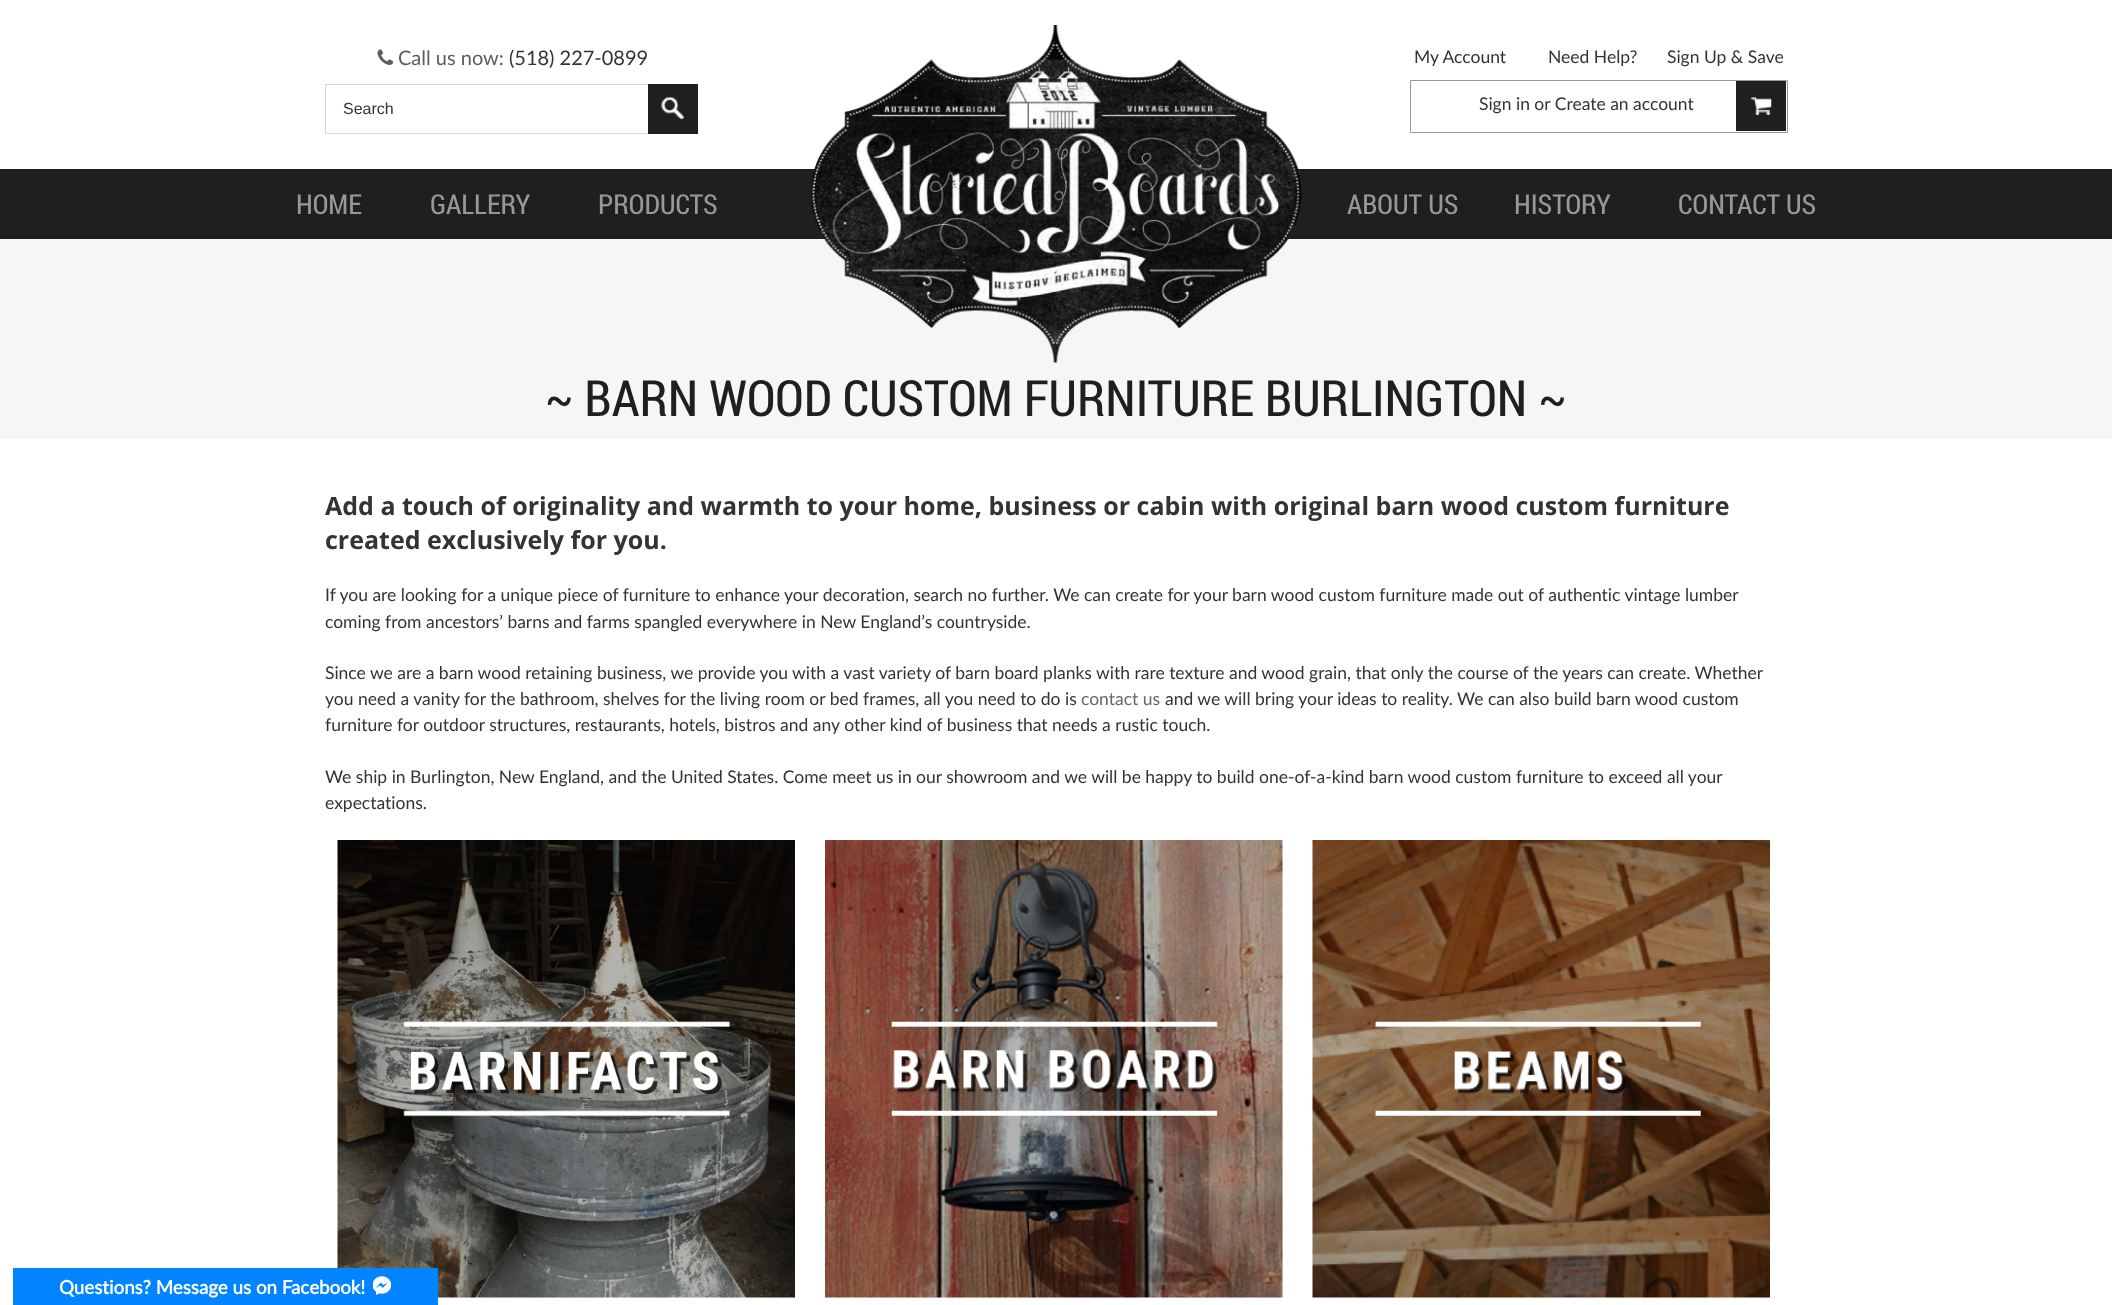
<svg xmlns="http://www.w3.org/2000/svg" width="2112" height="1305">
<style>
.a{font:20px Lato;fill:#5d5d5d}
.b{font:20px Lato;fill:#333}
.c{font:16px Liberation Sans;fill:#333}
.d{font:17.5px Lato;fill:#333}
.e{font:27.5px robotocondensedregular;fill:#979898}
.f{font:50px robotocondensedregular;fill:#1f1f1f}
.g{font:bold 25px Open Sans;fill:#333}
.h{font:17.5px Lato;fill:#666}
.i{font:bold 18.75px Lato;fill:#fff}
</style>
<rect width="100%" height="100%" fill="#fff"/>
<path fill="#1f1f1f" d="M0 169h2112v70H0z"/>
<path fill="#f6f6f6" d="M0 239h2112v200H0z"/>
<image href="1.png" x="810" y="25" width="493" height="338"/>
<image href="2.png" x="377" y="49" width="17" height="16"/>
<path fill="#d9d9d9" d="M325 84h323v1H325z"/>
<path fill="#d9d9d9" d="M325 133h323v1H325z"/>
<path fill="#d9d9d9" d="M325 84h1v50H325z"/>
<path fill="#1f1f1f" d="M648 84h50v50H648z"/>
<image href="3.png" x="661" y="97" width="23" height="23"/>
<path fill="none" stroke="#999" d="M1410.5 80.5h377v52H1410.5z"/>
<path fill="#1f1f1f" d="M1736 81h50v50H1736z"/>
<image href="4.png" x="1751" y="97" width="21" height="18"/>
<image href="5.png" x="337" y="840" width="458" height="458"/>
<image href="6.png" x="825" y="840" width="458" height="458"/>
<image href="7.png" x="1312" y="840" width="458" height="458"/>
<path fill="#0184ff" d="M13 1268h425v37H13z"/>
<image href="8.png" x="373" y="1276" width="18" height="19"/>
<text class="a" x="398" y="65">Call us now:</text>
<text class="b" x="509" y="65">(518) 227-0899</text>
<text class="c" x="343" y="114">Search</text>
<text class="d" x="1414" y="63">My Account</text>
<text class="d" x="1548" y="63">Need Help?</text>
<text class="d" x="1667" y="63">Sign Up &amp; Save</text>
<text class="d" x="1479" y="110">Sign in or Create an account</text>
<text class="e" x="296" y="214">HOME</text>
<text class="e" x="430" y="214">GALLERY</text>
<text class="e" x="598" y="214">PRODUCTS</text>
<text class="e" x="1347" y="214">ABOUT US</text>
<text class="e" x="1514" y="214">HISTORY</text>
<text class="e" x="1678" y="214">CONTACT US</text>
<text class="f" x="545" y="416">~ BARN WOOD CUSTOM FURNITURE BURLINGTON ~</text>
<text class="g" x="325" y="515">Add a touch of originality and warmth to your home, business or cabin with original barn wood custom furniture</text>
<text class="g" x="325" y="549">created exclusively for you.</text>
<text class="d" x="325" y="601">If you are looking for a unique piece of furniture to enhance your decoration, search no further. We can create for your barn wood custom furniture made out of authentic vintage lumber</text>
<text class="d" x="325" y="628">coming from ancestors’ barns and farms spangled everywhere in New England’s countryside.</text>
<text class="d" x="325" y="679">Since we are a barn wood retaining business, we provide you with a vast variety of barn board planks with rare texture and wood grain, that only the course of the years can create. Whether</text>
<text class="d" x="325" y="705">you need a vanity for the bathroom, shelves for the living room or bed frames, all you need to do is</text>
<text class="h" x="1081" y="705">contact us</text>
<text class="d" x="1165" y="705">and we will bring your ideas to reality. We can also build barn wood custom</text>
<text class="d" x="325" y="731">furniture for outdoor structures, restaurants, hotels, bistros and any other kind of business that needs a rustic touch.</text>
<text class="d" x="325" y="783">We ship in Burlington, New England, and the United States. Come meet us in our showroom and we will be happy to build one-of-a-kind barn wood custom furniture to exceed all your</text>
<text class="d" x="325" y="809">expectations.</text>
<text class="i" x="59" y="1294">Questions? Message us on Facebook!</text>
</svg>
